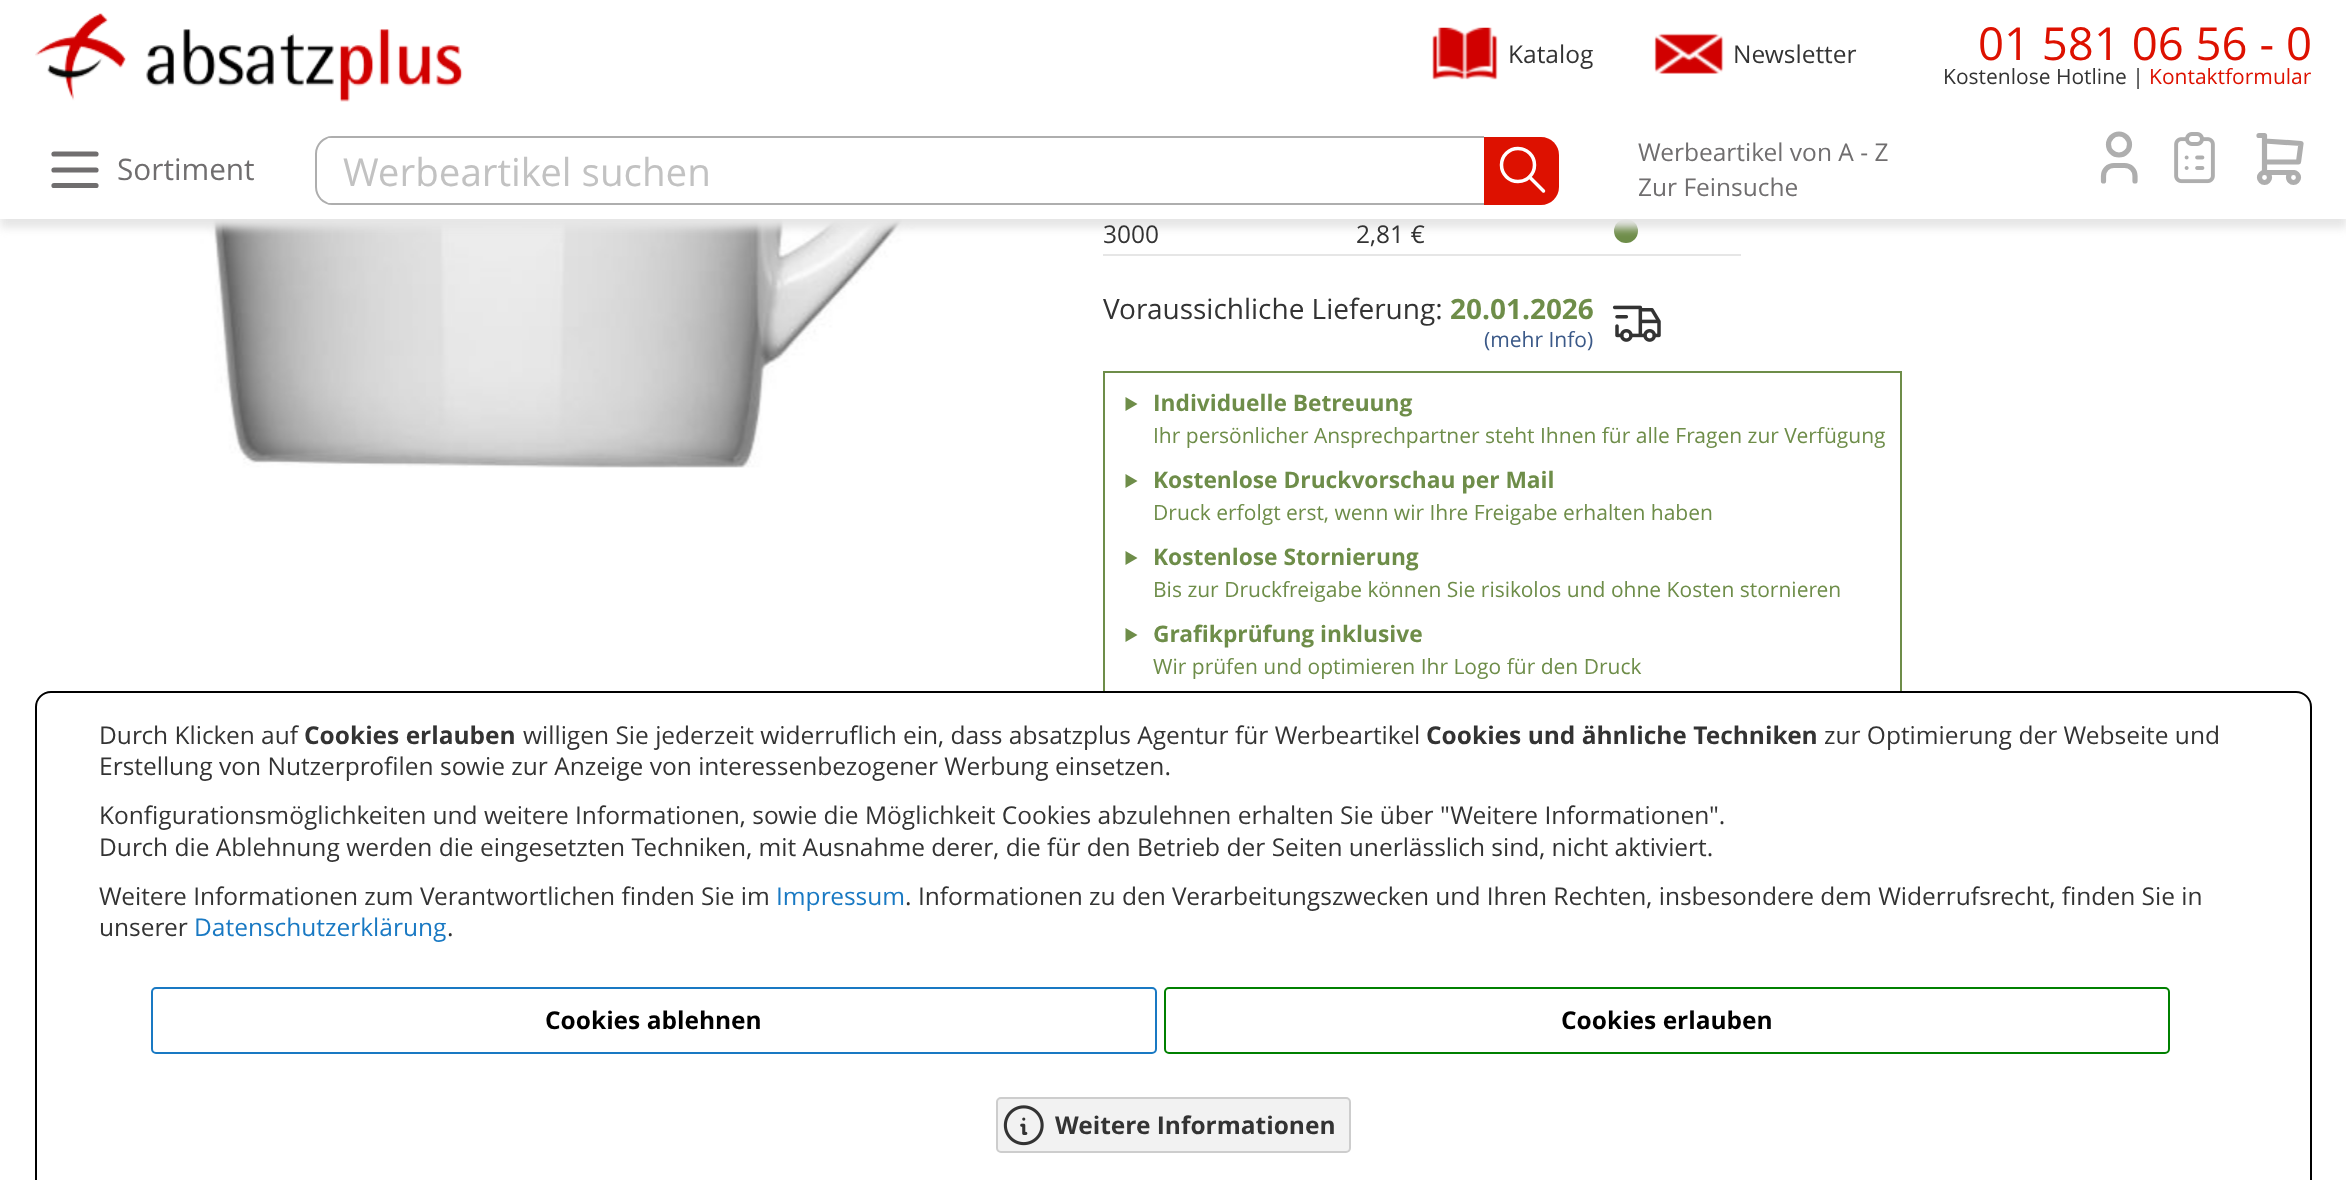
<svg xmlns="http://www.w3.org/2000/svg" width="2346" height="1180">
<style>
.a{font:24.5px Open Sans;fill:#333}
.b{font:45.5px Open Sans;fill:#d10}
.c{font:21px Open Sans;fill:#333}
.d{font:21px Open Sans;fill:#d10}
.e{font:29.75px Open Sans;fill:#706e6f}
.f{font:38.5px Open Sans;fill:#c2c2c2}
.g{font:24.5px Open Sans;fill:#706e6f}
.h{font:28px Open Sans;fill:#333}
.i{font:bold 28px Open Sans;fill:#6e8d49}
.j{font:21px Open Sans;fill:#3b5988}
.k{font:bold 22.75px Open Sans;fill:#6e8d49}
.l{font:21px Open Sans;fill:#6e8d49}
.m{font:bold 24.5px Open Sans;fill:#333}
.n{font:24.5px Open Sans;fill:#1979c3}
.o{font:bold 24.5px Open Sans;fill:#000}
</style>
<rect width="100%" height="100%" fill="#fff"/>
<image href="5.png" x="193" y="219" width="839" height="249"/>
<circle fill="#6e8d49" cx="1626" cy="231" r="12"/>
<path fill="#e6e6e6" filter="blur(4.5px)" d="M0 -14h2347v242H0z"/>
<path fill="#fff" d="M0 0h2346v219H0z"/>
<image href="1.png" x="35" y="13" width="428" height="89"/>
<image href="2.png" x="1432" y="27" width="66" height="53"/>
<image href="3.png" x="1654" y="33" width="70" height="41"/>
<circle fill="none" stroke="#aeaeae" stroke-width="5.2" cx="2119" cy="144.5" r="10.5"/>
<path fill="none" stroke="#aeaeae" stroke-width="5.2" stroke-linecap="round" stroke-linejoin="round" d="M2103.5 181v-5c0-6 4.5-10.5 10.5-10.5h10.5c6 0 10.5 4.5 10.5 10.5v5"/>
<image href="4.png" x="2174" y="132" width="41" height="52"/>
<circle fill="none" stroke="#aeaeae" stroke-width="5.2" cx="2264.5" cy="177.5" r="5"/>
<circle fill="none" stroke="#aeaeae" stroke-width="5.2" cx="2293.5" cy="177.5" r="5"/>
<path fill="none" stroke="#aeaeae" stroke-width="5.2" stroke-linecap="round" stroke-linejoin="round" d="M2293.5 172.5h-29v-37h-5.5m5.5 5.5l36.5 2.5l-2.5 18.5h-34"/>
<path fill="none" stroke="#706e6f" stroke-width="5.2" stroke-linecap="round" stroke-linejoin="round" d="M54 154h42m-42 16h42m-42 15.5h42"/>
<path fill="#aeaeae" fill-rule="evenodd" d="M332 136h1152v69h-1152c-9 0-17-8-17-18v-33c0-10 8-18 17-18zm0 2h1152v65h-1152c-8 0-15-7-15-16v-33c0-9 7-16 15-16z"/>
<rect fill="#fff" x="327" y="138" width="1157" height="65" rx="2"/>
<path fill="#d10" d="M1484 137h57c10 0 18 8 18 18v32c0 10-8 18-18 18h-57z"/>
<circle fill="none" stroke="#fff" stroke-width="3.5" cx="1518" cy="165" r="16.5"/>
<path fill="none" stroke="#fff" stroke-width="3.5" stroke-linecap="round" stroke-linejoin="round" d="M1543.5 191l-14-14"/>
<path fill="#e6e6e6" d="M1103 254h638v2H1103z"/>
<image href="6.png" x="1612" y="305" width="49" height="37"/>
<path fill="none" stroke="#6e8d49" stroke-width="2" d="M1104 372h797v338H1104z"/>
<path fill="#6e8d49" d="M1125.5 397l12 7l-12 7z"/>
<path fill="#6e8d49" d="M1125.5 474l12 7l-12 7z"/>
<path fill="#6e8d49" d="M1125.5 551l12 7l-12 7z"/>
<path fill="#6e8d49" d="M1125.5 628l12 7l-12 7z"/>
<rect fill="#fff" stroke="#000" stroke-width="2" x="36" y="692" width="2275" height="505" rx="15"/>
<rect fill="none" stroke="#1979c3" stroke-width="2" x="152" y="988" width="1004" height="65" rx="4"/>
<rect fill="none" stroke="#008000" stroke-width="2" x="1165" y="988" width="1004" height="65" rx="4"/>
<rect fill="#f2f2f2" stroke="#cdcdcd" stroke-width="2" x="997" y="1098" width="353" height="54" rx="4"/>
<image href="7.png" x="1003" y="1105" width="41" height="41"/>
<text class="a" x="1508" y="63">Katalog</text>
<text class="a" x="1733" y="63">Newsletter</text>
<text class="b" x="1978" y="60">01 581 06 56 - 0</text>
<text class="c" x="1943" y="84">Kostenlose Hotline |</text>
<text class="d" x="2149" y="84">Kontaktformular</text>
<text class="e" x="117" y="180">Sortiment</text>
<text class="f" x="343" y="186">Werbeartikel suchen</text>
<text class="g" x="1638" y="161">Werbeartikel von A - Z</text>
<text class="g" x="1638" y="196">Zur Feinsuche</text>
<text class="a" x="1103" y="243">3000</text>
<text class="a" x="1356" y="243">2,81 €</text>
<text class="h" x="1103" y="319">Voraussichliche Lieferung:</text>
<text class="i" x="1450" y="319">20.01.2026</text>
<text class="j" x="1484" y="347">(mehr Info)</text>
<text class="k" x="1153" y="411">Individuelle Betreuung</text>
<text class="l" x="1153" y="443">Ihr persönlicher Ansprechpartner steht Ihnen für alle Fragen zur Verfügung</text>
<text class="k" x="1153" y="488">Kostenlose Druckvorschau per Mail</text>
<text class="l" x="1153" y="520">Druck erfolgt erst, wenn wir Ihre Freigabe erhalten haben</text>
<text class="k" x="1153" y="565">Kostenlose Stornierung</text>
<text class="l" x="1153" y="597">Bis zur Druckfreigabe können Sie risikolos und ohne Kosten stornieren</text>
<text class="k" x="1153" y="642">Grafikprüfung inklusive</text>
<text class="l" x="1153" y="674">Wir prüfen und optimieren Ihr Logo für den Druck</text>
<text class="a" x="99" y="744">Durch Klicken auf</text>
<text class="m" x="304" y="744">Cookies erlauben</text>
<text class="a" x="523" y="744">willigen Sie jederzeit widerruflich ein, dass absatzplus Agentur für Werbeartikel</text>
<text class="m" x="1426" y="744">Cookies und ähnliche Techniken</text>
<text class="a" x="1824" y="744">zur Optimierung der Webseite und</text>
<text class="a" x="99" y="775">Erstellung von Nutzerprofilen sowie zur Anzeige von interessenbezogener Werbung einsetzen.</text>
<text class="a" x="99" y="824">Konfigurationsmöglichkeiten und weitere Informationen, sowie die Möglichkeit Cookies abzulehnen erhalten Sie über "Weitere Informationen".</text>
<text class="a" x="99" y="856">Durch die Ablehnung werden die eingesetzten Techniken, mit Ausnahme derer, die für den Betrieb der Seiten unerlässlich sind, nicht aktiviert.</text>
<text class="a" x="99" y="905">Weitere Informationen zum Verantwortlichen finden Sie im</text>
<text class="n" x="776" y="905">Impressum</text>
<text class="a" x="905" y="905">. Informationen zu den Verarbeitungszwecken und Ihren Rechten, insbesondere dem Widerrufsrecht, finden Sie in</text>
<text class="a" x="99" y="936">unserer</text>
<text class="n" x="194" y="936">Datenschutzerklärung</text>
<text class="a" x="447" y="936">.</text>
<text class="o" x="545" y="1029">Cookies ablehnen</text>
<text class="o" x="1561" y="1029">Cookies erlauben</text>
<text class="m" x="1055" y="1134">Weitere Informationen</text>
</svg>
